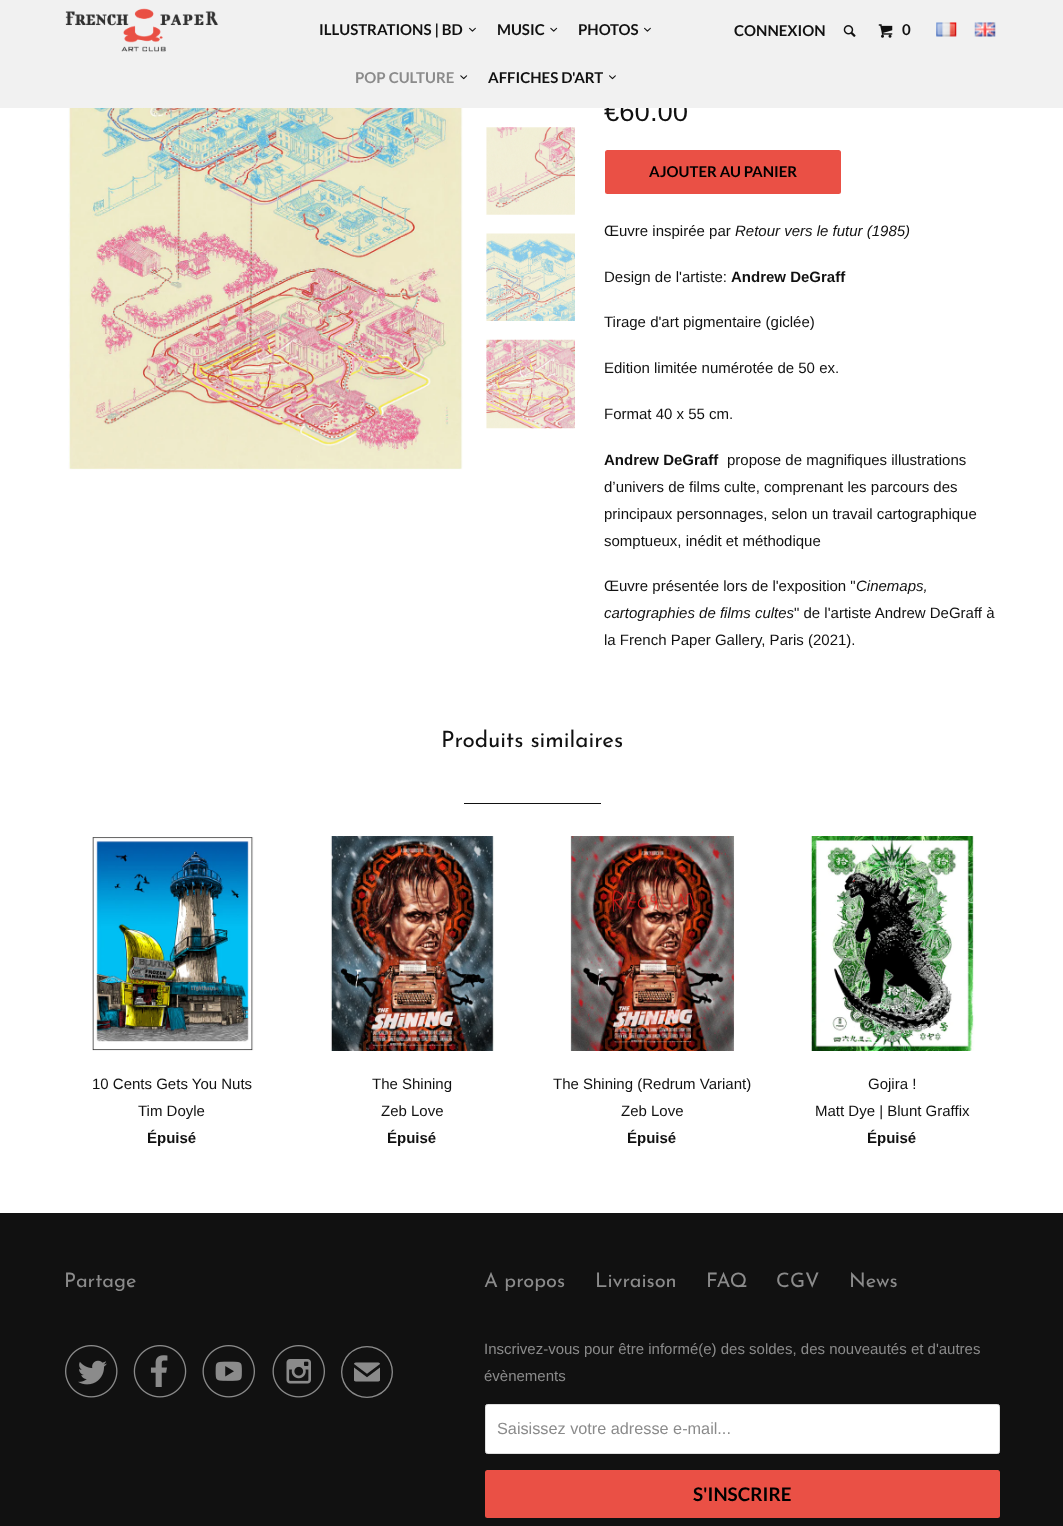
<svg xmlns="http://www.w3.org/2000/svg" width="1063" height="1526">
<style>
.a{font:27.5px Liberation Sans;fill:#111}
.b{font:bold 15px Lato;fill:#111}
.c{font:bold 15px Lato;fill:#8b8b8b}
.d{font:bold 15px Lato;fill:#000}
.e{font:15px Liberation Sans;fill:#111}
.f{font:italic 15px Liberation Sans;fill:#111}
.g{font:bold 15px Liberation Sans;fill:#111}
.h{font:22.5px Josefin Sans;fill:#111}
.i{font:20px Josefin Sans;fill:#8b8b8b}
.j{font:52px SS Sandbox;fill:#8b8b8b}
.k{font:15px Liberation Sans;fill:#8b8b8b}
.l{font:16.25px Liberation Sans;fill:#8b8b8b}
.m{font:bold 18.75px Lato;fill:#000}
</style>
<rect width="100%" height="100%" fill="#fff"/>
<image href="10.png" x="68" y="108" width="395" height="362"/>
<image href="11.png" x="486" y="127" width="89" height="88"/>
<image href="12.png" x="486" y="233" width="89" height="88"/>
<image href="13.png" x="486" y="339" width="89" height="90"/>
<rect fill="#ea5045" x="605" y="150" width="236" height="44" rx="2.5"/>
<path fill="#111" d="M464 803h137v1H464z"/>
<image href="14.png" x="92" y="837" width="162" height="214"/>
<image href="15.png" x="330" y="836" width="165" height="215"/>
<image href="16.png" x="570" y="836" width="165" height="215"/>
<image href="17.png" x="810" y="836" width="165" height="215"/>
<path fill="#111" d="M0 1213h1063v313H0z"/>
<image href="18.png" x="65" y="1345" width="53" height="53"/>
<image href="19.png" x="133" y="1345" width="54" height="53"/>
<image href="20.png" x="202" y="1345" width="53" height="53"/>
<image href="21.png" x="272" y="1345" width="53" height="53"/>
<rect fill="#fff" stroke="#dfdfdf" x="485.5" y="1404.5" width="514" height="49" rx="2"/>
<rect fill="#ea5045" x="485" y="1470" width="515" height="48" rx="2.5"/>
<text class="a" x="604" y="121">€60.00</text>
<path fill="#f1f1f1" d="M0 0h1063v108H0z"/>
<image href="5.png" x="609" y="75" width="7" height="5"/>
<text class="b" x="488" y="83">AFFICHES D'ART</text>
<image href="4.png" x="460" y="75" width="8" height="5"/>
<text class="c" x="355" y="83">POP CULTURE</text>
<image href="2.png" x="644" y="27" width="7" height="5"/>
<text class="b" x="578" y="35">PHOTOS</text>
<image href="3.png" x="550" y="27" width="8" height="5"/>
<text class="b" x="497" y="35">MUSIC</text>
<image href="2.png" x="469" y="27" width="7" height="5"/>
<text class="b" x="319" y="35">ILLUSTRATIONS | BD</text>
<image href="9.png" x="974" y="22" width="22" height="15"/>
<image href="8.png" x="936" y="22" width="21" height="15"/>
<text class="b" x="902" y="35">0</text>
<image href="7.png" x="878" y="24" width="15" height="14"/>
<image href="6.png" x="843" y="25" width="13" height="12"/>
<text class="b" x="734" y="36">CONNEXION</text>
<image href="1.png" x="65" y="8" width="154" height="44"/>
<text class="d" x="649" y="177">AJOUTER AU PANIER</text>
<text class="e" x="604" y="236">Œuvre inspirée par</text>
<text class="f" x="735" y="236">Retour vers le futur (1985)</text>
<text class="e" x="604" y="282">Design de l'artiste:</text>
<text class="g" x="731" y="282">Andrew DeGraff</text>
<text class="e" x="604" y="327">Tirage d'art pigmentaire (giclée)</text>
<text class="e" x="604" y="373">Edition limitée numérotée de 50 ex.</text>
<text class="e" x="604" y="419">Format 40 x 55 cm.</text>
<text class="g" x="604" y="465">Andrew DeGraff</text>
<text class="e" x="727" y="465">propose de magnifiques illustrations</text>
<text class="e" x="604" y="492">d’univers de films culte, comprenant les parcours des</text>
<text class="e" x="604" y="519">principaux personnages, selon un travail cartographique</text>
<text class="e" x="604" y="546">somptueux, inédit et méthodique</text>
<text class="e" x="604" y="591">Œuvre présentée lors de l'exposition "</text>
<text class="f" x="856" y="591">Cinemaps,</text>
<text class="f" x="604" y="618">cartographies de films cultes</text>
<text class="e" x="794" y="618">" de l'artiste Andrew DeGraff à</text>
<text class="e" x="604" y="645">la French Paper Gallery, Paris (2021).</text>
<text class="h" x="441" y="747">Produits similaires</text>
<text class="e" x="92" y="1089">10 Cents Gets You Nuts</text>
<text class="e" x="138" y="1116">Tim Doyle</text>
<text class="g" x="147" y="1143">Épuisé</text>
<text class="e" x="372" y="1089">The Shining</text>
<text class="e" x="381" y="1116">Zeb Love</text>
<text class="g" x="387" y="1143">Épuisé</text>
<text class="e" x="553" y="1089">The Shining (Redrum Variant)</text>
<text class="e" x="621" y="1116">Zeb Love</text>
<text class="g" x="627" y="1143">Épuisé</text>
<text class="e" x="868" y="1089">Gojira !</text>
<text class="e" x="815" y="1116">Matt Dye | Blunt Graffix</text>
<text class="g" x="867" y="1143">Épuisé</text>
<text class="i" x="64" y="1287">Partage</text>
<text class="j" x="341" y="1398">✉</text>
<text class="i" x="484" y="1287">A propos</text>
<text class="i" x="595" y="1287">Livraison</text>
<text class="i" x="706" y="1287">FAQ</text>
<text class="i" x="776" y="1287">CGV</text>
<text class="i" x="849" y="1287">News</text>
<text class="k" x="484" y="1354">Inscrivez-vous pour être informé(e) des soldes, des nouveautés et d'autres</text>
<text class="k" x="484" y="1381">évènements</text>
<text class="l" x="497" y="1434">Saisissez votre adresse e-mail...</text>
<text class="m" x="693" y="1501">S'INSCRIRE</text>
</svg>
